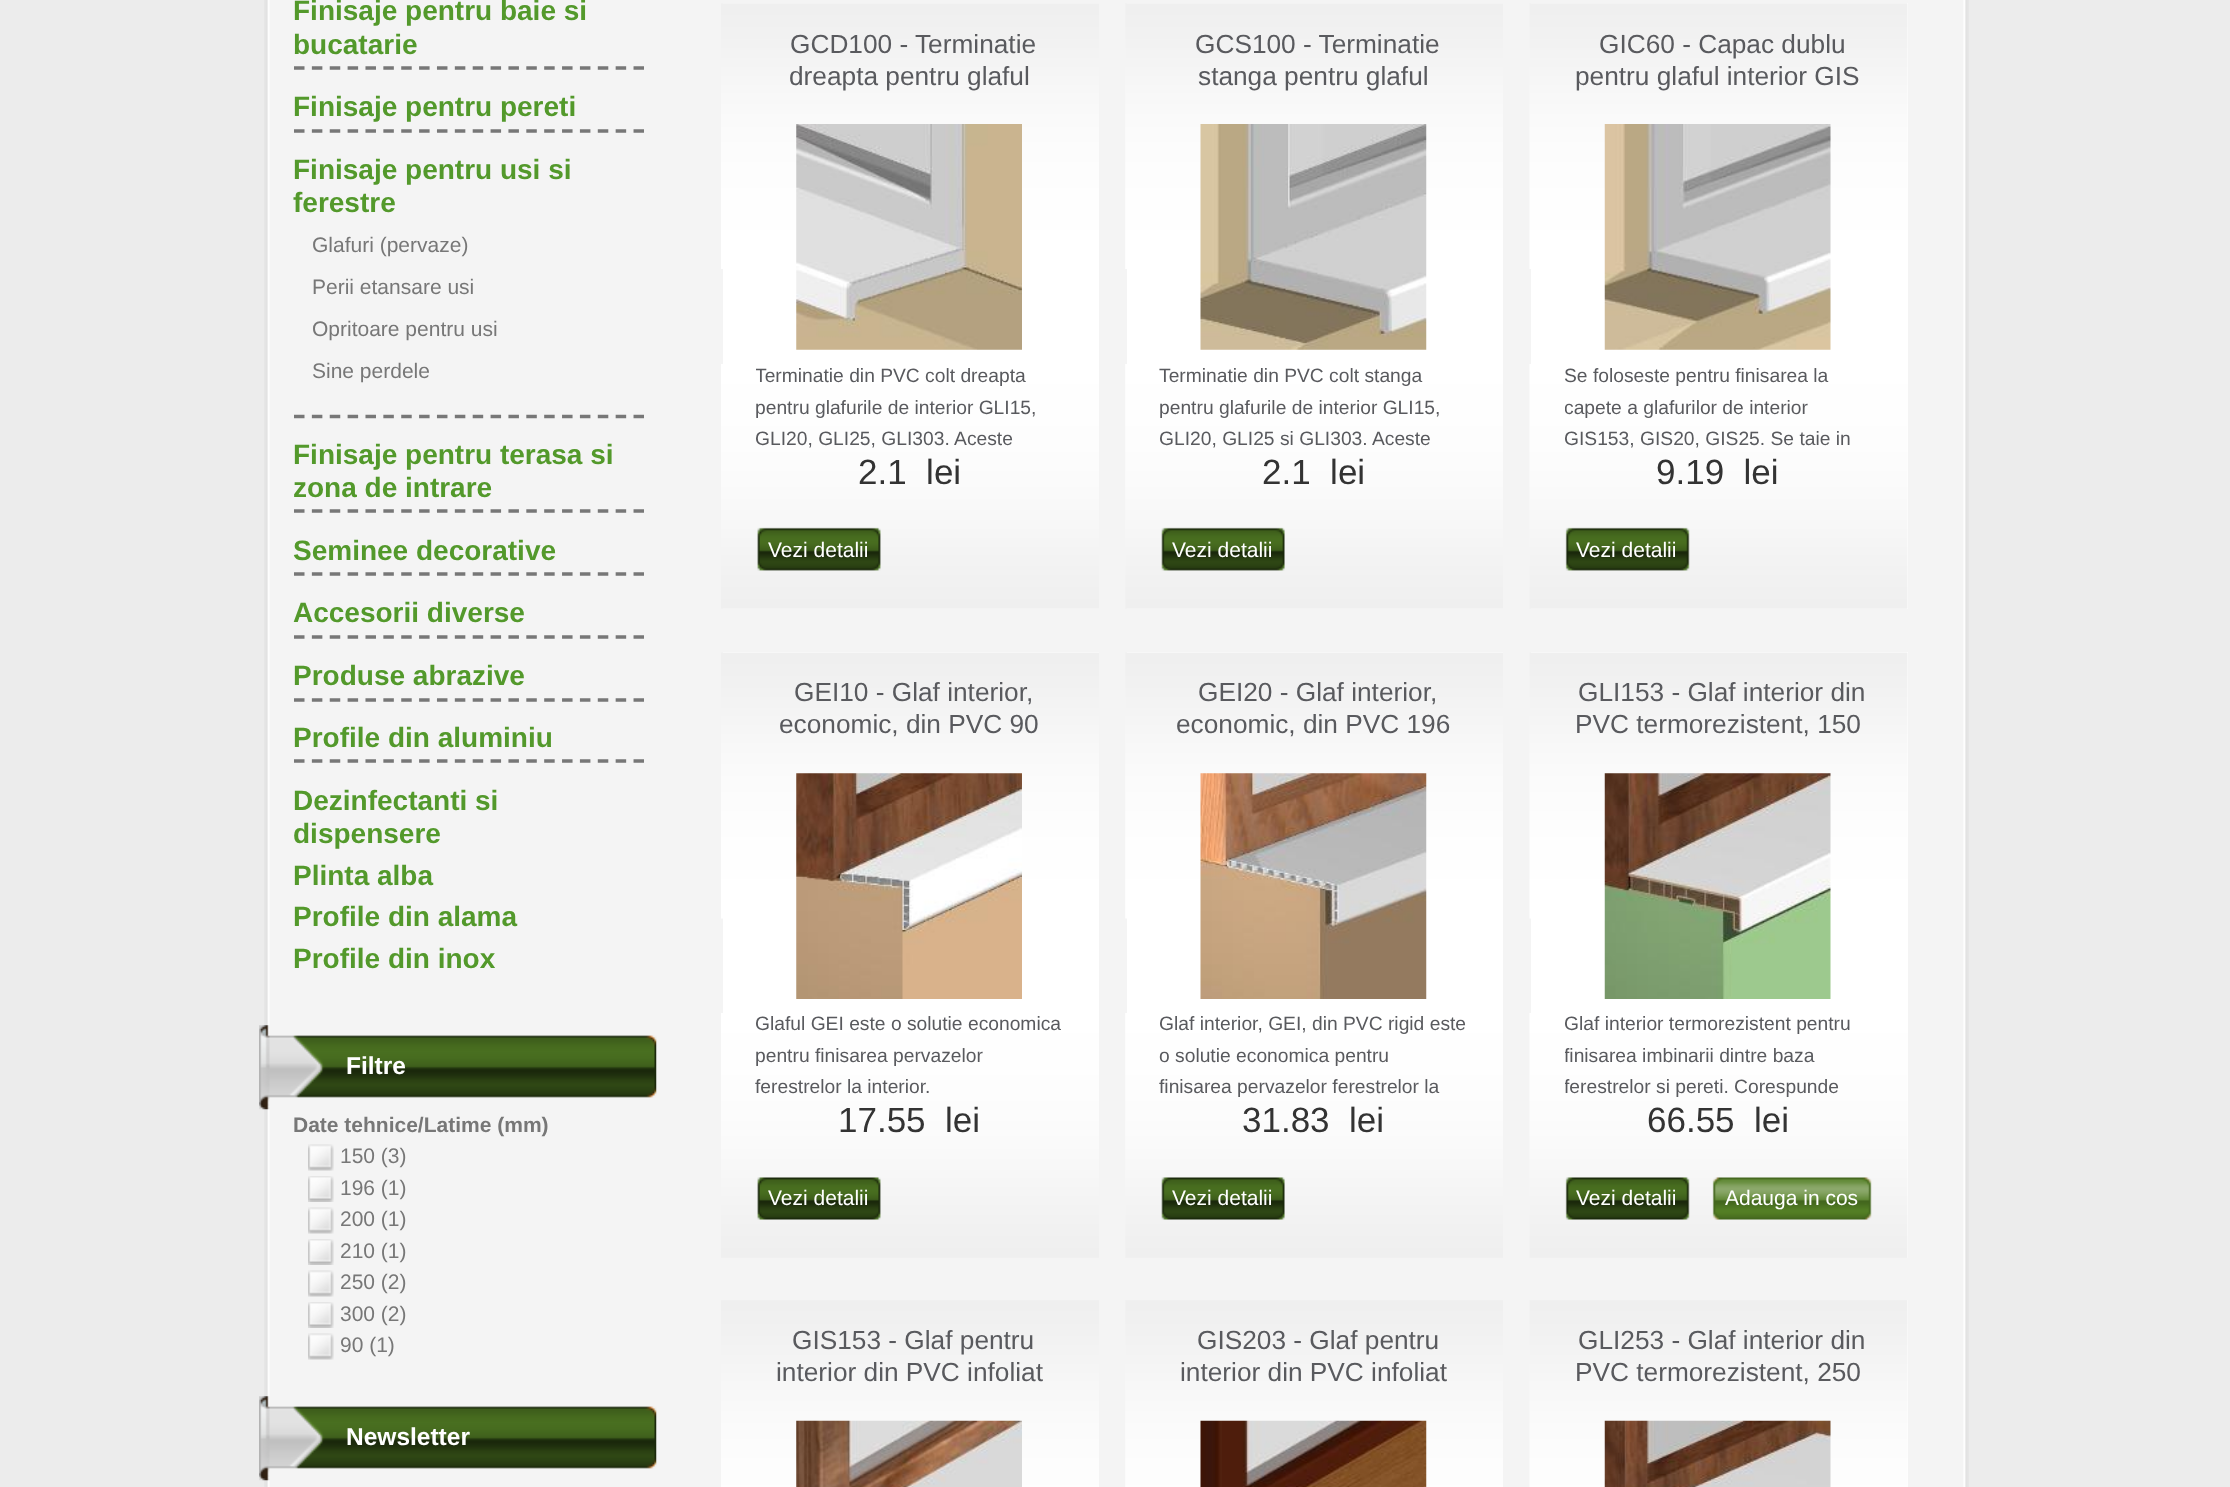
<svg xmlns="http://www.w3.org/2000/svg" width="2230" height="1487">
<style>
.a{font:bold 28px Liberation Sans;fill:#53992b}
.b{font:21px Liberation Sans;fill:#777}
.c{font:bold 24.5px Liberation Sans;fill:#fff}
.d{font:bold 21px Liberation Sans;fill:#777}
.e{font:26.25px Liberation Sans;fill:#595a5e}
.f{font:19.25px Liberation Sans;fill:#595a5e}
.g{font:35px Liberation Sans;fill:#333}
.h{font:21px Liberation Sans;fill:#fff}
</style>
<defs>
<clipPath id="clip1"><path d="M756 359h308v96H756z"/></clipPath>
<clipPath id="clip2"><path d="M1565 359h308v96H1565z"/></clipPath>
<clipPath id="clip3"><path d="M1565 1008h308v96H1565z"/></clipPath>
</defs>
<rect width="100%" height="100%" fill="#ececec"/>
<image href="1.png" x="264" y="0" width="1705" height="1487"/>
<path fill="none" stroke="#777" stroke-width="3.5" stroke-dasharray="10.5 7.37" d="M294 68h350"/>
<path fill="none" stroke="#777" stroke-width="3.5" stroke-dasharray="10.5 7.37" d="M294 131h350"/>
<path fill="none" stroke="#777" stroke-width="3.5" stroke-dasharray="10.5 7.37" d="M294 416.5h350"/>
<path fill="none" stroke="#777" stroke-width="3.5" stroke-dasharray="10.5 7.37" d="M294 511h350"/>
<path fill="none" stroke="#777" stroke-width="3.5" stroke-dasharray="10.5 7.37" d="M294 574h350"/>
<path fill="none" stroke="#777" stroke-width="3.5" stroke-dasharray="10.5 7.37" d="M294 637h350"/>
<path fill="none" stroke="#777" stroke-width="3.5" stroke-dasharray="10.5 7.37" d="M294 700h350"/>
<path fill="none" stroke="#777" stroke-width="3.5" stroke-dasharray="10.5 7.37" d="M294 761h350"/>
<image href="2.png" x="259" y="1025" width="398" height="85"/>
<image href="3.png" x="308" y="1144" width="26" height="27"/>
<image href="4.png" x="308" y="1176" width="26" height="26"/>
<image href="3.png" x="308" y="1207" width="26" height="27"/>
<image href="5.png" x="308" y="1239" width="26" height="26"/>
<image href="3.png" x="308" y="1270" width="26" height="27"/>
<image href="4.png" x="308" y="1302" width="26" height="26"/>
<image href="3.png" x="308" y="1333" width="26" height="27"/>
<image href="2.png" x="259" y="1396" width="398" height="85"/>
<path fill="#fff" d="M723 3h376v606H723z"/>
<image href="6.png" x="721" y="3" width="378" height="266"/>
<image href="7.png" x="721" y="364" width="378" height="245"/>
<image href="8.png" x="796" y="124" width="226" height="226"/>
<image href="9.png" x="757" y="527" width="124" height="44"/>
<path fill="#fff" d="M1127 3h376v606H1127z"/>
<image href="10.png" x="1125" y="3" width="378" height="266"/>
<image href="11.png" x="1125" y="364" width="378" height="245"/>
<image href="12.png" x="1200" y="124" width="227" height="226"/>
<image href="13.png" x="1161" y="527" width="124" height="44"/>
<path fill="#fff" d="M1531 3h377v606H1531z"/>
<image href="14.png" x="1529" y="3" width="379" height="266"/>
<image href="15.png" x="1529" y="364" width="379" height="245"/>
<image href="16.png" x="1604" y="124" width="227" height="226"/>
<image href="17.png" x="1565" y="527" width="125" height="44"/>
<path fill="#fff" d="M723 652h376v361H723z"/>
<image href="18.png" x="721" y="652" width="378" height="267"/>
<image href="19.png" x="721" y="1013" width="378" height="245"/>
<image href="20.png" x="796" y="773" width="226" height="226"/>
<image href="21.png" x="757" y="1177" width="124" height="43"/>
<path fill="#fff" d="M1127 652h376v361H1127z"/>
<image href="22.png" x="1125" y="652" width="378" height="267"/>
<image href="23.png" x="1125" y="1013" width="378" height="245"/>
<image href="24.png" x="1200" y="773" width="227" height="226"/>
<image href="25.png" x="1161" y="1177" width="124" height="43"/>
<path fill="#fff" d="M1531 652h377v606H1531z"/>
<image href="26.png" x="1529" y="652" width="379" height="267"/>
<image href="27.png" x="1529" y="1013" width="379" height="245"/>
<image href="28.png" x="1604" y="773" width="227" height="226"/>
<image href="29.png" x="1565" y="1177" width="125" height="43"/>
<image href="30.png" x="1712" y="1177" width="160" height="43"/>
<image href="31.png" x="721" y="1300" width="378" height="187"/>
<image href="32.png" x="796" y="1420" width="226" height="67"/>
<image href="33.png" x="1125" y="1300" width="378" height="187"/>
<image href="34.png" x="1200" y="1420" width="227" height="67"/>
<path fill="#fff" d="M1907 1300h1v187H1907z"/>
<image href="35.png" x="1529" y="1300" width="379" height="187"/>
<image href="36.png" x="1604" y="1420" width="227" height="67"/>
<text class="a" x="293" y="20">Finisaje pentru baie si</text>
<text class="a" x="293" y="54">bucatarie</text>
<text class="a" x="293" y="116">Finisaje pentru pereti</text>
<text class="a" x="293" y="179">Finisaje pentru usi si</text>
<text class="a" x="293" y="212">ferestre</text>
<text class="b" x="312" y="252">Glafuri (pervaze)</text>
<text class="b" x="312" y="294">Perii etansare usi</text>
<text class="b" x="312" y="336">Opritoare pentru usi</text>
<text class="b" x="312" y="378">Sine perdele</text>
<text class="a" x="293" y="464">Finisaje pentru terasa si</text>
<text class="a" x="293" y="497">zona de intrare</text>
<text class="a" x="293" y="560">Seminee decorative</text>
<text class="a" x="293" y="622">Accesorii diverse</text>
<text class="a" x="293" y="685">Produse abrazive</text>
<text class="a" x="293" y="747">Profile din aluminiu</text>
<text class="a" x="293" y="810">Dezinfectanti si</text>
<text class="a" x="293" y="843">dispensere</text>
<text class="a" x="293" y="885">Plinta alba</text>
<text class="a" x="293" y="926">Profile din alama</text>
<text class="a" x="293" y="968">Profile din inox</text>
<text class="c" x="346" y="1074">Filtre</text>
<text class="d" x="293" y="1132">Date tehnice/Latime (mm)</text>
<text class="b" x="340" y="1163">150 (3)</text>
<text class="b" x="340" y="1195">196 (1)</text>
<text class="b" x="340" y="1226">200 (1)</text>
<text class="b" x="340" y="1258">210 (1)</text>
<text class="b" x="340" y="1289">250 (2)</text>
<text class="b" x="340" y="1321">300 (2)</text>
<text class="b" x="340" y="1352">90 (1)</text>
<text class="c" x="346" y="1445">Newsletter</text>
<text class="e" x="790" y="53">GCD100 - Terminatie</text>
<text class="e" x="789" y="85">dreapta pentru glaful</text>
<g clip-path="url(#clip1)">
<text class="f" x="755" y="382">Terminatie din PVC colt dreapta</text>
</g>
<text class="f" x="755" y="414">pentru glafurile de interior GLI15,</text>
<text class="f" x="755" y="445">GLI20, GLI25, GLI303. Aceste</text>
<text class="g" xml:space="preserve" x="858" y="484">2.1  lei</text>
<text class="h" x="768" y="557">Vezi detalii</text>
<text class="e" x="1195" y="53">GCS100 - Terminatie</text>
<text class="e" x="1198" y="85">stanga pentru glaful</text>
<text class="f" x="1159" y="382">Terminatie din PVC colt stanga</text>
<text class="f" x="1159" y="414">pentru glafurile de interior GLI15,</text>
<text class="f" x="1159" y="445">GLI20, GLI25 si GLI303. Aceste</text>
<text class="g" xml:space="preserve" x="1262" y="484">2.1  lei</text>
<text class="h" x="1172" y="557">Vezi detalii</text>
<text class="e" x="1599" y="53">GIC60 - Capac dublu</text>
<text class="e" x="1575" y="85">pentru glaful interior GIS</text>
<text class="f" x="1564" y="382">Se foloseste pentru finisarea la</text>
<g clip-path="url(#clip2)">
<text class="f" x="1564" y="414">capete a glafurilor de interior</text>
<text class="f" x="1564" y="445">GIS153, GIS20, GIS25. Se taie in</text>
</g>
<text class="g" xml:space="preserve" x="1656" y="484">9.19  lei</text>
<text class="h" x="1576" y="557">Vezi detalii</text>
<text class="e" x="794" y="701">GEI10 - Glaf interior,</text>
<text class="e" x="779" y="733">economic, din PVC 90</text>
<text class="f" x="755" y="1030">Glaful GEI este o solutie economica</text>
<text class="f" x="755" y="1062">pentru finisarea pervazelor</text>
<text class="f" x="755" y="1093">ferestrelor la interior.</text>
<text class="g" xml:space="preserve" x="838" y="1132">17.55  lei</text>
<text class="h" x="768" y="1205">Vezi detalii</text>
<text class="e" x="1198" y="701">GEI20 - Glaf interior,</text>
<text class="e" x="1176" y="733">economic, din PVC 196</text>
<text class="f" x="1159" y="1030">Glaf interior, GEI, din PVC rigid este</text>
<text class="f" x="1159" y="1062">o solutie economica pentru</text>
<text class="f" x="1159" y="1093">finisarea pervazelor ferestrelor la</text>
<text class="g" xml:space="preserve" x="1242" y="1132">31.83  lei</text>
<text class="h" x="1172" y="1205">Vezi detalii</text>
<text class="e" x="1578" y="701">GLI153 - Glaf interior din</text>
<text class="e" x="1575" y="733">PVC termorezistent, 150</text>
<g clip-path="url(#clip3)">
<text class="f" x="1564" y="1030">Glaf interior termorezistent pentru</text>
<text class="f" x="1564" y="1062">finisarea imbinarii dintre baza</text>
<text class="f" x="1564" y="1093">ferestrelor si pereti. Corespunde</text>
</g>
<text class="g" xml:space="preserve" x="1647" y="1132">66.55  lei</text>
<text class="h" x="1576" y="1205">Vezi detalii</text>
<text class="h" x="1725" y="1205">Adauga in cos</text>
<text class="e" x="792" y="1349">GIS153 - Glaf pentru</text>
<text class="e" x="776" y="1381">interior din PVC infoliat</text>
<text class="e" x="1197" y="1349">GIS203 - Glaf pentru</text>
<text class="e" x="1180" y="1381">interior din PVC infoliat</text>
<text class="e" x="1578" y="1349">GLI253 - Glaf interior din</text>
<text class="e" x="1575" y="1381">PVC termorezistent, 250</text>
</svg>
